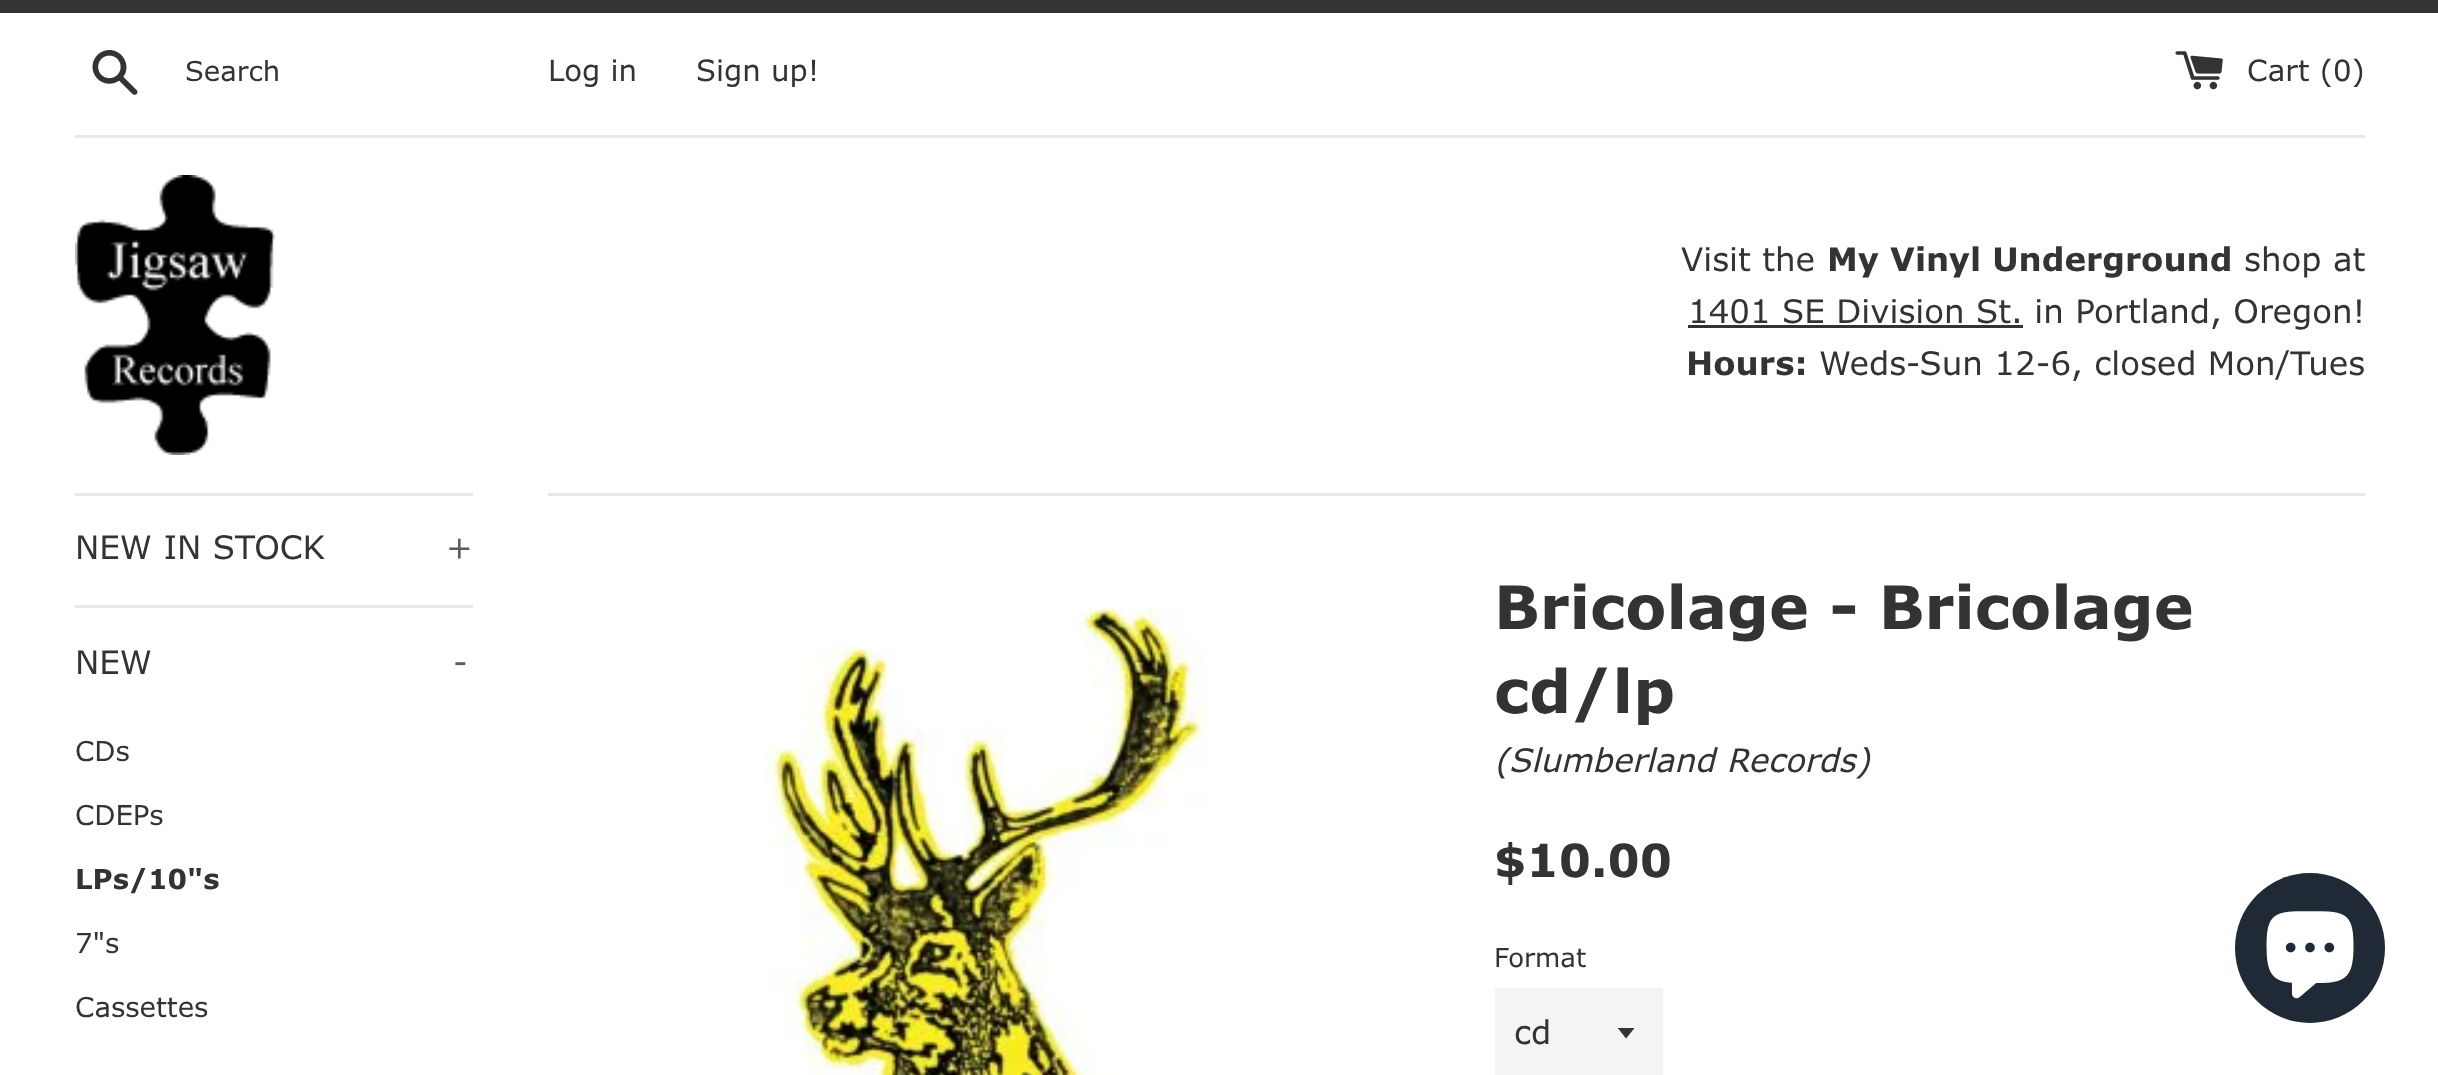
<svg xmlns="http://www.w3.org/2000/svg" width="2438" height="1075">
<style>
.a{font:27.5px Verdana;fill:#333}
.b{font:29.25px Verdana;fill:#333}
.c{font:32.5px Verdana;fill:#333}
.d{font:bold 32.5px Verdana;fill:#333}
.e{font:32.5px Verdana;fill:#5c5c5c}
.f{font:bold 27.5px Verdana;fill:#333}
.g{font:bold 60px Verdana;fill:#333}
.h{font:italic 32.5px Verdana;fill:#333}
.i{font:bold 45.5px Verdana;fill:#333}
.j{font:26px Verdana;fill:#333}
</style>
<defs>
<clipPath id="clip1"><path d="M1618 1028h20v12H1618z"/></clipPath>
</defs>
<rect width="100%" height="100%" fill="#fff"/>
<path fill="#333" d="M0 0h2438v13H0z"/>
<image href="1.png" x="92" y="50" width="46" height="45"/>
<image href="2.png" x="2175" y="51" width="48" height="39"/>
<path fill="#e8e8e8" d="M75 135h2290v3H75z"/>
<image href="3.png" x="75" y="175" width="200" height="280"/>
<path fill="#333" d="M1688 325h335v3H1688z"/>
<path fill="#e8e8e8" d="M75 493h398v3H75z"/>
<path fill="#e8e8e8" d="M75 605h398v3H75z"/>
<path fill="#e8e8e8" d="M548 493h1817v3H548z"/>
<image href="4.png" x="764" y="607" width="444" height="468"/>
<path fill="#f4f4f4" d="M1495 988h168v87H1495z"/>
<g clip-path="url(#clip1)">
<path fill="#333" d="M1617.5 1027.5l8.5 11l9-11z"/>
</g>
<circle fill="#202a36" cx="2310" cy="948" r="75"/>
<image href="5.png" x="2266" y="911" width="88" height="88"/>
<text class="a" x="185" y="81">Search</text>
<text class="b" x="548" y="81">Log in</text>
<text class="b" x="696" y="81">Sign up!</text>
<text class="b" x="2247" y="81">Cart (0)</text>
<text class="c" x="1681" y="271">Visit the</text>
<text class="d" x="1827" y="271">My Vinyl Underground</text>
<text class="c" x="2244" y="271">shop at</text>
<text class="c" x="1688" y="323">1401 SE Division St. in Portland, Oregon!</text>
<text class="d" x="1686" y="375">Hours:</text>
<text class="c" x="1819" y="375">Weds-Sun 12-6, closed Mon/Tues</text>
<text class="c" x="75" y="559">NEW IN STOCK</text>
<text class="e" x="446" y="559">+</text>
<text class="c" x="75" y="674">NEW</text>
<text class="e" x="453" y="674">-</text>
<text class="a" x="75" y="761">CDs</text>
<text class="a" x="75" y="825">CDEPs</text>
<text class="f" x="75" y="889">LPs/10"s</text>
<text class="a" x="75" y="953">7"s</text>
<text class="a" x="75" y="1017">Cassettes</text>
<text class="g" x="1494" y="629">Bricolage - Bricolage</text>
<text class="g" x="1494" y="713">cd/lp</text>
<text class="h" x="1494" y="772">(Slumberland Records)</text>
<text class="i" x="1494" y="877">$10.00</text>
<text class="j" x="1494" y="967">Format</text>
<text class="c" x="1514" y="1044">cd</text>
</svg>
